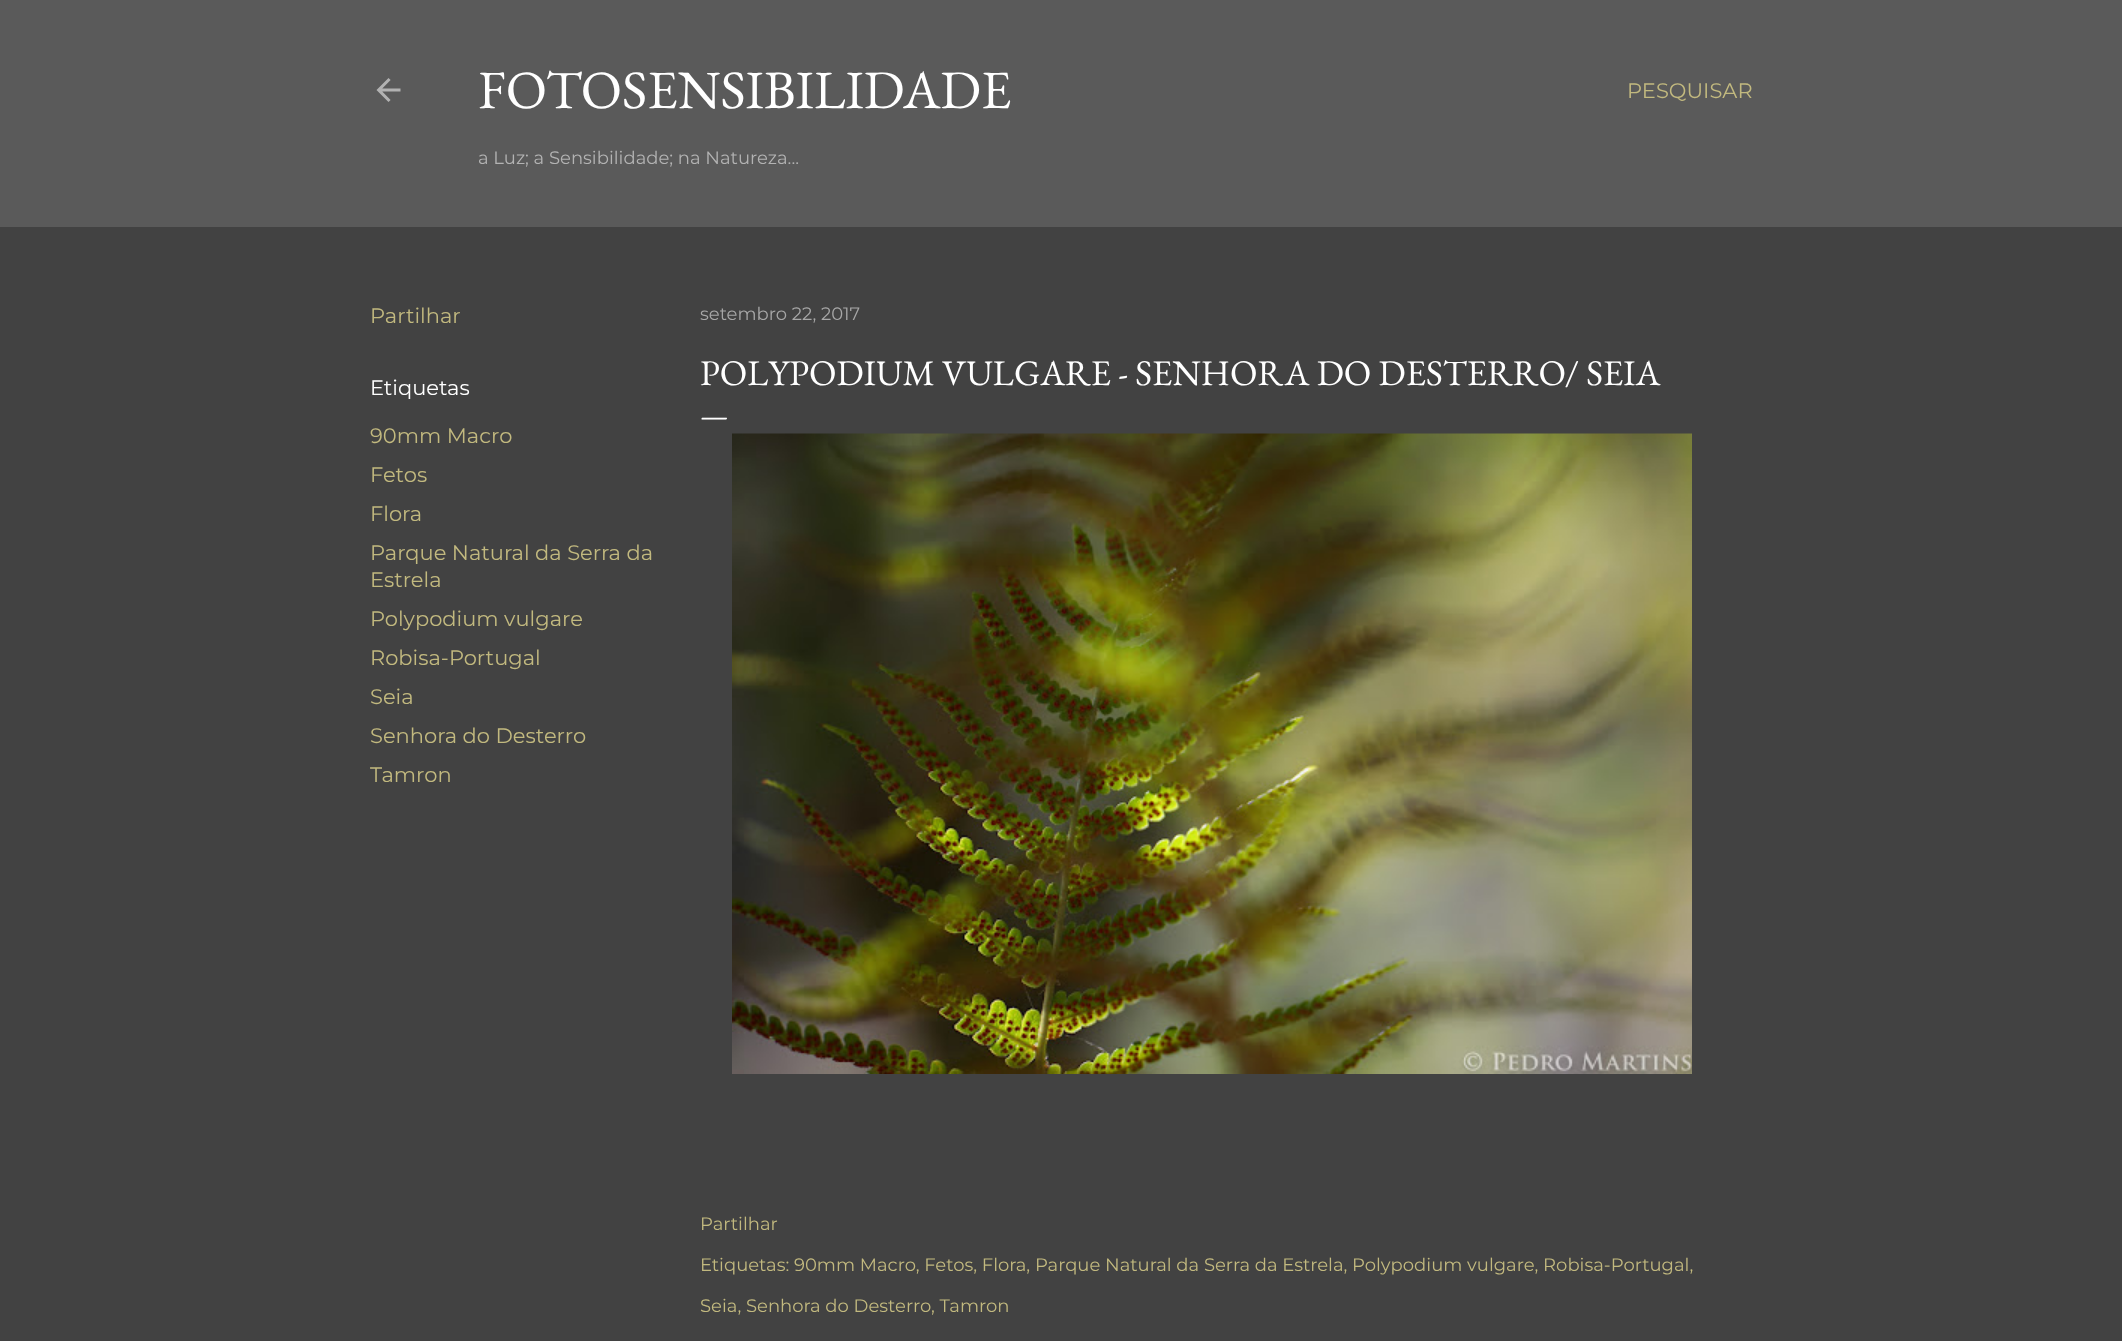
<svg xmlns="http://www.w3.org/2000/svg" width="2122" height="1341">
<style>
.a{font:54px EB Garamond;fill:#fff}
.b{font:18px Montserrat;fill:#b3b3b3}
.c{font:21px Montserrat;fill:#c2b97f}
.d{font:21px Montserrat;fill:#fff}
.e{font:18px Montserrat;fill:#a7a7a7}
.f{font:36px EB Garamond;fill:#fff}
.g{font:30px EB Garamond;fill:#fff}
.h{font:18px Montserrat;fill:#c2b97f}
</style>
<rect width="100%" height="100%" fill="#424242"/>
<path fill="#5a5a5a" d="M0 0h2122v227H0z"/>
<image href="1.png" x="376" y="78" width="25" height="24"/>
<image href="2.png" x="732" y="433" width="960" height="641"/>
<text class="a" x="478" y="108">FOTOSENSIBILIDADE</text>
<text class="b" x="478" y="164">a Luz; a Sensibilidade; na Natureza...</text>
<text class="c" x="1627" y="98">PESQUISAR</text>
<text class="c" x="370" y="323">Partilhar</text>
<text class="d" x="370" y="395">Etiquetas</text>
<text class="c" x="370" y="443">90mm Macro</text>
<text class="c" x="370" y="482">Fetos</text>
<text class="c" x="370" y="521">Flora</text>
<text class="c" x="370" y="560">Parque Natural da Serra da</text>
<text class="c" x="370" y="587">Estrela</text>
<text class="c" x="370" y="626">Polypodium vulgare</text>
<text class="c" x="370" y="665">Robisa-Portugal</text>
<text class="c" x="370" y="704">Seia</text>
<text class="c" x="370" y="743">Senhora do Desterro</text>
<text class="c" x="370" y="782">Tamron</text>
<text class="e" x="700" y="320">setembro 22, 2017</text>
<text class="f" x="700" y="385">POLYPODIUM VULGARE - SENHORA DO DESTERRO/ SEIA</text>
<text class="g" x="700" y="425">—</text>
<text class="h" x="700" y="1230">Partilhar</text>
<text class="h" x="700" y="1271">Etiquetas: 90mm Macro, Fetos, Flora, Parque Natural da Serra da Estrela, Polypodium vulgare, Robisa-Portugal,</text>
<text class="h" x="700" y="1312">Seia, Senhora do Desterro, Tamron</text>
</svg>
